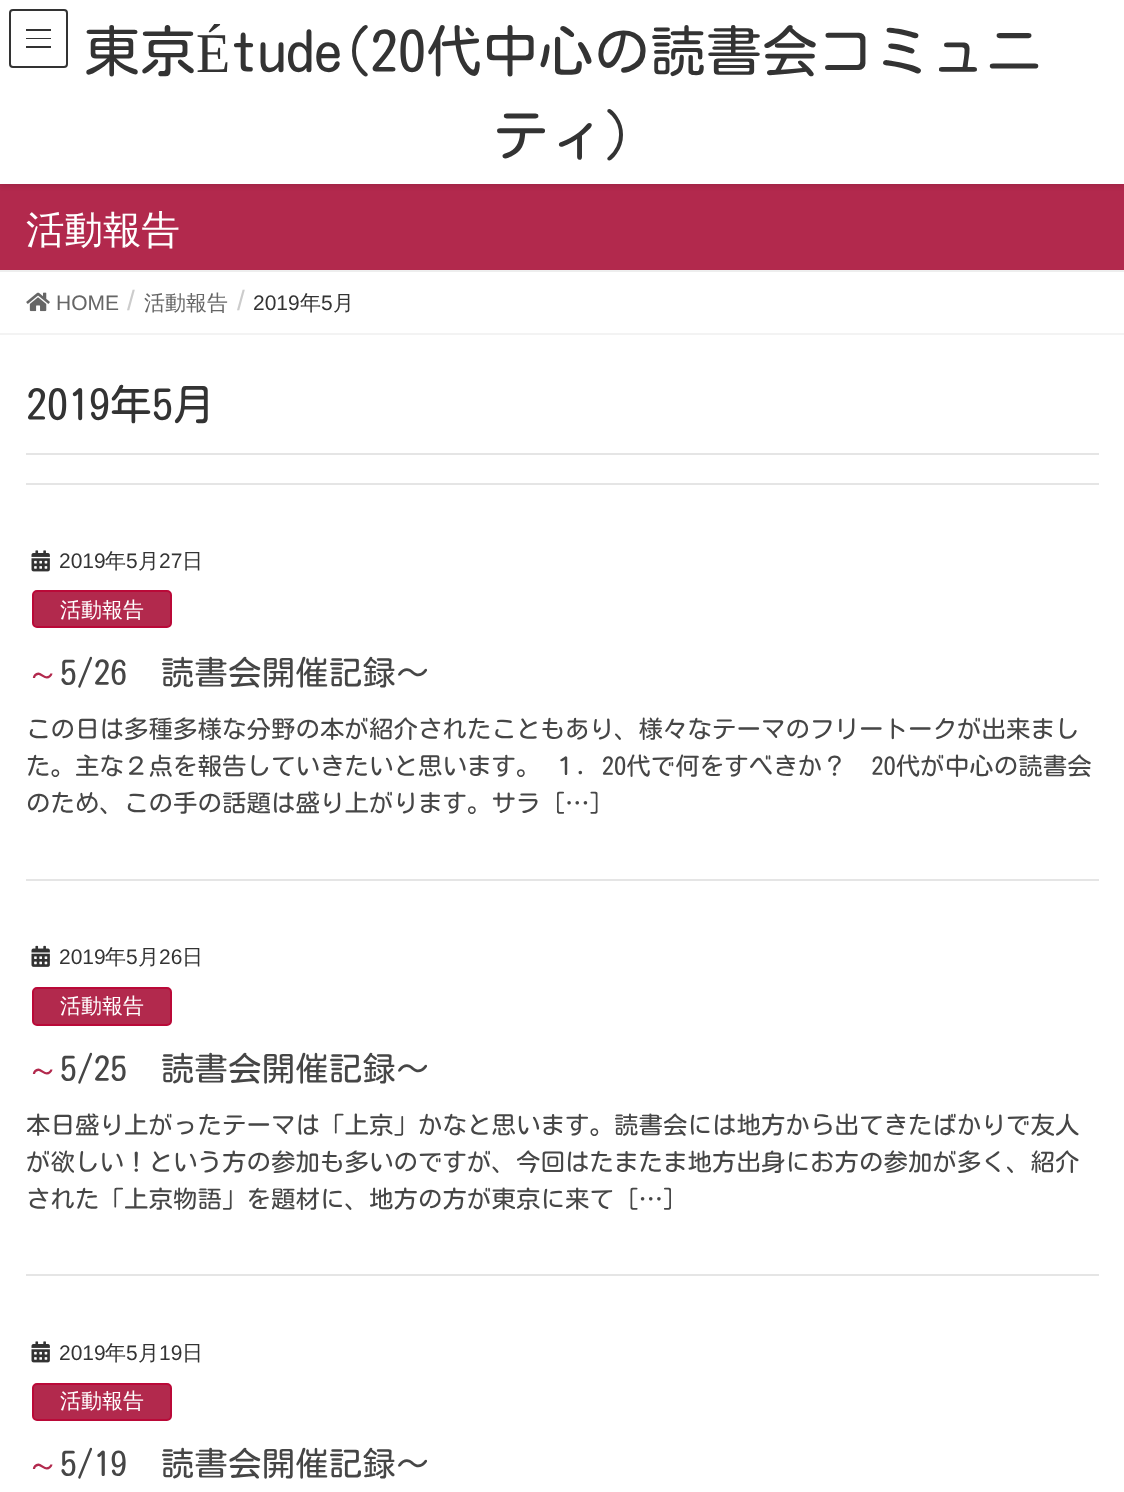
<svg xmlns="http://www.w3.org/2000/svg" width="1124" height="1492">
<style>
.a{font:56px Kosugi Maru;fill:#333}
.b{font:56px Liberation Serif;fill:#333}
.c{font:500 38.5px WenQuanYi Zen Hei;fill:#fff}
.d{font:21px Liberation Sans;fill:#666}
.e{font:28px Liberation Sans;fill:#ccc}
.f{font:500 21px WenQuanYi Zen Hei;fill:#666}
.g{font:21px Liberation Sans;fill:#333}
.h{font:500 21px WenQuanYi Zen Hei;fill:#333}
.i{font:42px Kosugi Maru;fill:#333}
.j{font:500 21px WenQuanYi Zen Hei;fill:#fff}
.k{font:33.6px Noto Sans;fill:#b2294d}
.l{font:33.6px Kosugi Maru;fill:#464646}
.m{font:24.5px Kosugi Maru;fill:#464646}
</style>
<rect width="100%" height="100%" fill="#fff"/>
<path fill="#b2294d" d="M0 184h1124v86H0z"/>
<path fill="#0000001a" filter="blur(2.5px)" d="M0 2h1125v184H0z"/>
<path fill="#fff" d="M0 0h1124v184H0z"/>
<path fill="#333" d="M26 29h25v2H26z"/>
<path fill="#333" d="M26 38h25v1H26z"/>
<path fill="#333" d="M26 46h25v2H26z"/>
<rect fill="none" stroke="#333" stroke-width="2" x="10" y="10" width="57" height="57" rx="3"/>
<path fill="#eee" d="M0 270h1124v2H0z"/>
<path fill="#f3f3f3" d="M0 333h1124v2H0z"/>
<image href="1.png" x="26" y="292" width="24" height="20"/>
<path fill="#e5e5e5" d="M26 453h1073v2H26z"/>
<path fill="#e5e5e5" d="M26 483h1073v2H26z"/>
<path fill="#e5e5e5" d="M26 879h1073v2H26z"/>
<image href="2.png" x="31" y="550" width="19" height="22"/>
<rect fill="#b2294d" stroke="#ba0938" stroke-width="2" x="33" y="591" width="138" height="36" rx="4"/>
<path fill="#e5e5e5" d="M26 1274h1073v2H26z"/>
<image href="3.png" x="31" y="945" width="19" height="22"/>
<rect fill="#b2294d" stroke="#ba0938" stroke-width="2" x="33" y="988" width="138" height="37" rx="4"/>
<image href="2.png" x="31" y="1341" width="19" height="22"/>
<rect fill="#b2294d" stroke="#ba0938" stroke-width="2" x="33" y="1384" width="138" height="36" rx="4"/>
<text class="a" x="84" y="72">東京</text>
<text class="b" x="196" y="72">É</text>
<text class="a" x="230" y="72">tude(20代中心の読書会コミュニ</text>
<text class="a" x="493" y="156">ティ)</text>
<text class="c" x="26" y="243">活動報告</text>
<text class="d" x="56" y="310">HOME</text>
<text class="e" x="127" y="310">/</text>
<text class="f" x="144" y="310">活動報告</text>
<text class="e" x="237" y="310">/</text>
<text class="g" x="253" y="310">2019</text>
<text class="h" x="300" y="310">年</text>
<text class="g" x="321" y="310">5</text>
<text class="h" x="333" y="310">月</text>
<text class="i" x="26" y="420">2019年5月</text>
<text class="g" x="59" y="568">2019</text>
<text class="h" x="105" y="568">年</text>
<text class="g" x="126" y="568">5</text>
<text class="h" x="138" y="568">月</text>
<text class="g" x="159" y="568">27</text>
<text class="h" x="182" y="568">日</text>
<text class="j" x="60" y="617">活動報告</text>
<text class="k" x="26" y="685">～</text>
<text class="l" x="60" y="685">5/26　読書会開催記録～</text>
<text class="m" x="26" y="738">この日は多種多様な分野の本が紹介されたこともあり、様々なテーマのフリートークが出来まし</text>
<text class="m" x="26" y="775">た。主な２点を報告していきたいと思います。 １．20代で何をすべきか？　20代が中心の読書会</text>
<text class="m" x="26" y="812">のため、この手の話題は盛り上がります。サラ […]</text>
<text class="g" x="59" y="964">2019</text>
<text class="h" x="105" y="964">年</text>
<text class="g" x="126" y="964">5</text>
<text class="h" x="138" y="964">月</text>
<text class="g" x="159" y="964">26</text>
<text class="h" x="182" y="964">日</text>
<text class="j" x="60" y="1013">活動報告</text>
<text class="k" x="26" y="1081">～</text>
<text class="l" x="60" y="1081">5/25　読書会開催記録～</text>
<text class="m" x="26" y="1134">本日盛り上がったテーマは「上京」かなと思います。読書会には地方から出てきたばかりで友人</text>
<text class="m" x="26" y="1171">が欲しい！という方の参加も多いのですが、今回はたまたま地方出身にお方の参加が多く、紹介</text>
<text class="m" x="26" y="1208">された「上京物語」を題材に、地方の方が東京に来て […]</text>
<text class="g" x="59" y="1360">2019</text>
<text class="h" x="105" y="1360">年</text>
<text class="g" x="126" y="1360">5</text>
<text class="h" x="138" y="1360">月</text>
<text class="g" x="159" y="1360">19</text>
<text class="h" x="182" y="1360">日</text>
<text class="j" x="60" y="1408">活動報告</text>
<text class="k" x="26" y="1476">～</text>
<text class="l" x="60" y="1476">5/19　読書会開催記録～</text>
</svg>
